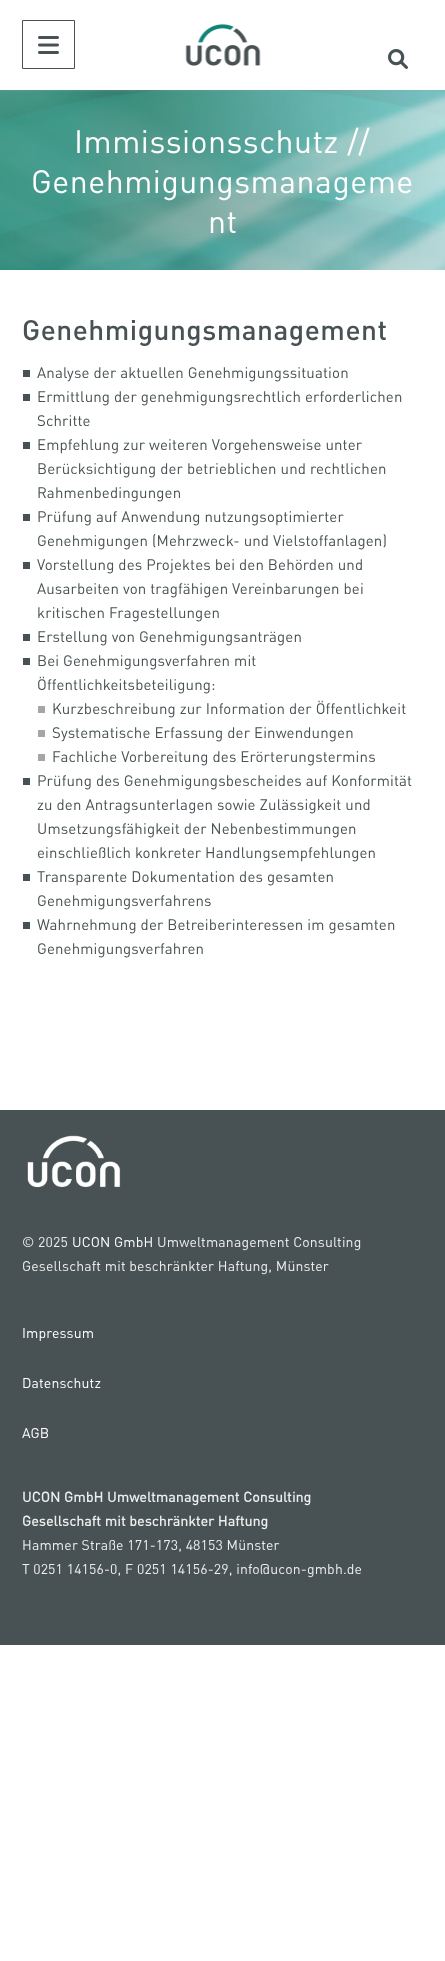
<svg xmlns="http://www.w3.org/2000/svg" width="445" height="1961">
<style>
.a{font:32px DIN;letter-spacing:0.5px;fill:#fff}
.b{font:500 28px DIN;letter-spacing:0.5px;fill:#485153}
.c{font:15px DIN;letter-spacing:0.15px;fill:#485153}
.d{font:14px DIN;letter-spacing:0.15px;fill:#eceded}
.e{font:14px DIN;letter-spacing:0.15px;fill:#fff}
.f{font:bold 14px DIN;letter-spacing:0.15px;fill:#eceded}
</style>
<defs>
<clipPath id="clip1"><path d="M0 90h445v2H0z"/></clipPath>
</defs>
<rect width="100%" height="100%" fill="#fff"/>
<image href="4.png" x="0" y="90" width="445" height="180"/>
<g clip-path="url(#clip1)">
<path fill="#a1a1a140" filter="blur(1px)" d="M0 1h445v90H0z"/>
</g>
<path fill="none" stroke="#485153" d="M22.5 20.5h52v48H22.5z"/>
<image href="1.png" x="38" y="36" width="21" height="18"/>
<image href="2.png" x="185" y="24" width="76" height="42"/>
<image href="3.png" x="388" y="49" width="20" height="20"/>
<path fill="#485153" d="M23 370h7v7H23z"/>
<path fill="#485153" d="M23 394h7v7H23z"/>
<path fill="#485153" d="M23 442h7v7H23z"/>
<path fill="#485153" d="M23 514h7v7H23z"/>
<path fill="#485153" d="M23 562h7v7H23z"/>
<path fill="#485153" d="M23 634h7v7H23z"/>
<path fill="#485153" d="M23 658h7v7H23z"/>
<path fill="#a3a7a8" d="M38 706h7v7H38z"/>
<path fill="#a3a7a8" d="M38 730h7v7H38z"/>
<path fill="#a3a7a8" d="M38 754h7v7H38z"/>
<path fill="#485153" d="M23 778h7v7H23z"/>
<path fill="#485153" d="M23 874h7v7H23z"/>
<path fill="#485153" d="M23 922h7v7H23z"/>
<path fill="#485153" d="M0 1110h445v535H0z"/>
<image href="5.png" x="27" y="1135" width="94" height="53"/>
<text class="a" x="74" y="153">Immissionsschutz //</text>
<text class="a" x="31" y="193">Genehmigungsmanageme</text>
<text class="a" x="208" y="233">nt</text>
<text class="b" x="22" y="340">Genehmigungsmanagement</text>
<text class="c" x="37" y="378">Analyse der aktuellen Genehmigungssituation</text>
<text class="c" x="37" y="402">Ermittlung der genehmigungsrechtlich erforderlichen</text>
<text class="c" x="37" y="426">Schritte</text>
<text class="c" x="37" y="450">Empfehlung zur weiteren Vorgehensweise unter</text>
<text class="c" x="37" y="474">Berücksichtigung der betrieblichen und rechtlichen</text>
<text class="c" x="37" y="498">Rahmenbedingungen</text>
<text class="c" x="37" y="522">Prüfung auf Anwendung nutzungsoptimierter</text>
<text class="c" x="37" y="546">Genehmigungen (Mehrzweck- und Vielstoffanlagen)</text>
<text class="c" x="37" y="570">Vorstellung des Projektes bei den Behörden und</text>
<text class="c" x="37" y="594">Ausarbeiten von tragfähigen Vereinbarungen bei</text>
<text class="c" x="37" y="618">kritischen Fragestellungen</text>
<text class="c" x="37" y="642">Erstellung von Genehmigungsanträgen</text>
<text class="c" x="37" y="666">Bei Genehmigungsverfahren mit</text>
<text class="c" x="37" y="690">Öffentlichkeitsbeteiligung:</text>
<text class="c" x="52" y="714">Kurzbeschreibung zur Information der Öffentlichkeit</text>
<text class="c" x="52" y="738">Systematische Erfassung der Einwendungen</text>
<text class="c" x="52" y="762">Fachliche Vorbereitung des Erörterungstermins</text>
<text class="c" x="37" y="786">Prüfung des Genehmigungsbescheides auf Konformität</text>
<text class="c" x="37" y="810">zu den Antragsunterlagen sowie Zulässigkeit und</text>
<text class="c" x="37" y="834">Umsetzungsfähigkeit der Nebenbestimmungen</text>
<text class="c" x="37" y="858">einschließlich konkreter Handlungsempfehlungen</text>
<text class="c" x="37" y="882">Transparente Dokumentation des gesamten</text>
<text class="c" x="37" y="906">Genehmigungsverfahrens</text>
<text class="c" x="37" y="930">Wahrnehmung der Betreiberinteressen im gesamten</text>
<text class="c" x="37" y="954">Genehmigungsverfahren</text>
<text class="d" x="22" y="1247">© 2025</text>
<text class="e" x="72" y="1247">UCON GmbH</text>
<text class="d" x="157" y="1247">Umweltmanagement Consulting</text>
<text class="d" x="22" y="1271">Gesellschaft mit beschränkter Haftung, Münster</text>
<text class="e" x="22" y="1338">Impressum</text>
<text class="e" x="22" y="1388">Datenschutz</text>
<text class="e" x="22" y="1438">AGB</text>
<text class="f" x="22" y="1502">UCON GmbH Umweltmanagement Consulting</text>
<text class="f" x="22" y="1526">Gesellschaft mit beschränkter Haftung</text>
<text class="d" x="22" y="1550">Hammer Straße 171-173, 48153 Münster</text>
<text class="d" x="22" y="1574">T 0251 14156-0, F 0251 14156-29, info@ucon-gmbh.de</text>
</svg>
